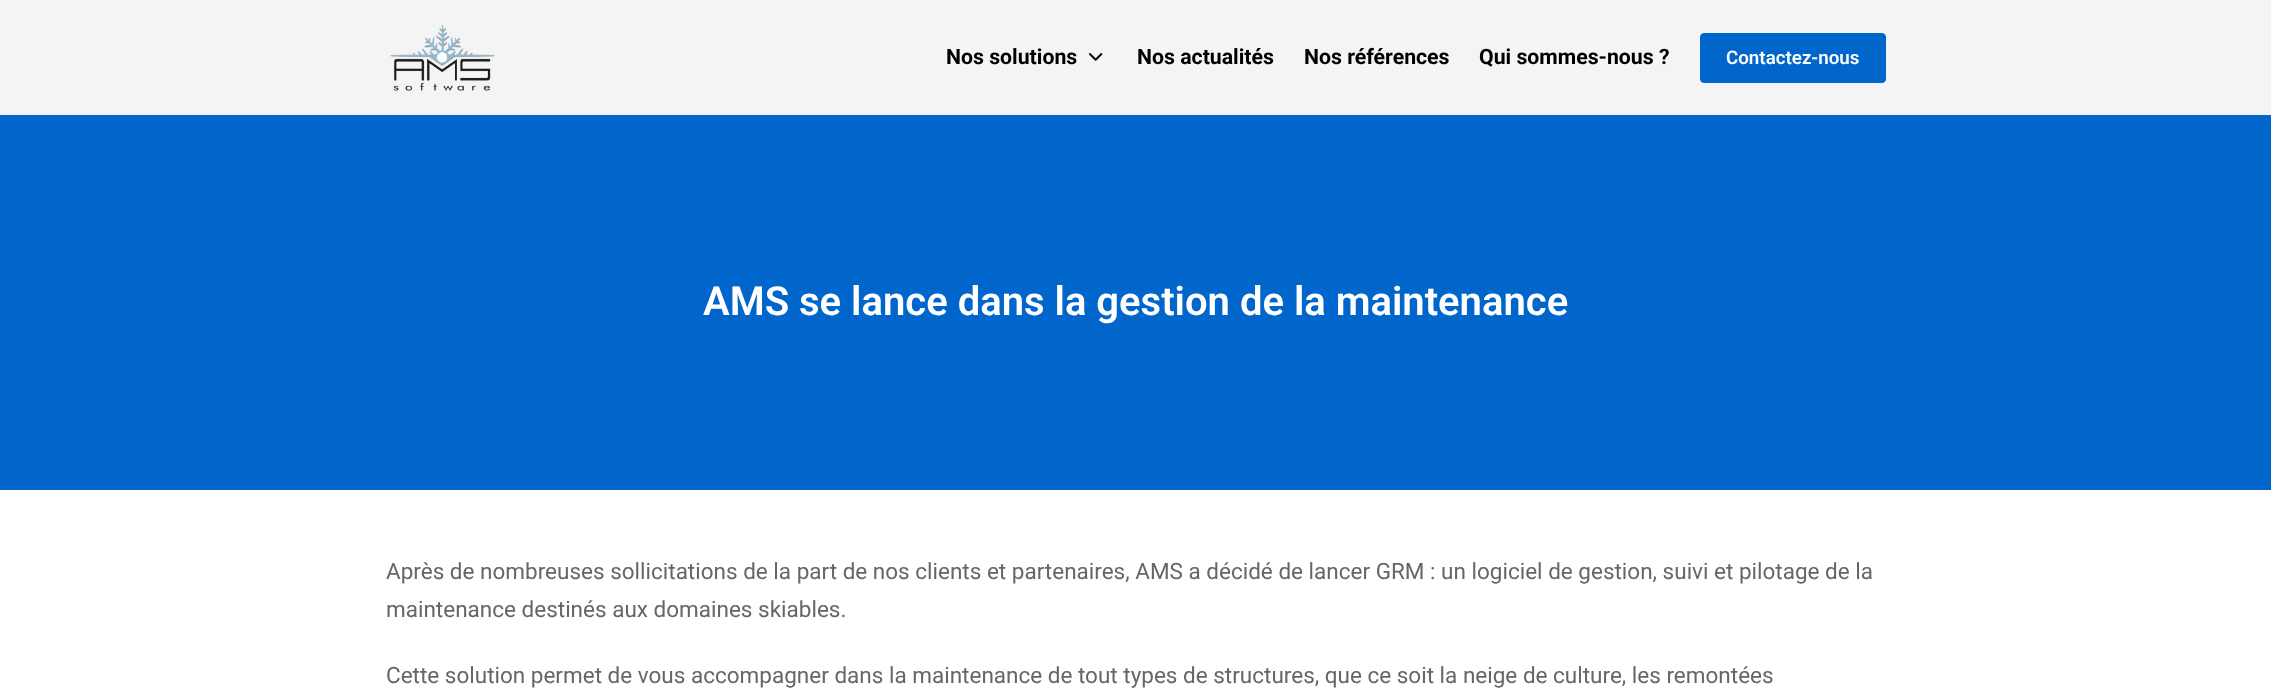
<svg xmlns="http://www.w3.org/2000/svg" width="2271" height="690">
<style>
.a{font:bold 21.25px Roboto;fill:#000}
.b{font:600 18.75px Roboto;fill:#fff}
.c{font:600 40px Roboto;fill:#fff}
.d{font:22.5px Roboto;fill:#666}
</style>
<rect width="100%" height="100%" fill="#fff"/>
<path fill="#f4f4f4" d="M0 0h2271v115H0z"/>
<image href="1.png" x="390" y="24" width="105" height="67"/>
<image href="2.png" x="1088" y="53" width="15" height="8"/>
<rect fill="#06c" stroke="#06c" x="1700.5" y="33.5" width="185" height="49" rx="3.5"/>
<path fill="#06c" d="M0 115h2271v375H0z"/>
<text class="a" x="946" y="64">Nos solutions</text>
<text class="a" x="1137" y="64">Nos actualités</text>
<text class="a" x="1304" y="64">Nos références</text>
<text class="a" x="1479" y="64">Qui sommes-nous ?</text>
<text class="b" x="1726" y="64">Contactez-nous</text>
<text class="c" x="703" y="315">AMS se lance dans la gestion de la maintenance</text>
<text class="d" x="386" y="579">Après de nombreuses sollicitations de la part de nos clients et partenaires, AMS a décidé de lancer GRM : un logiciel de gestion, suivi et pilotage de la</text>
<text class="d" x="386" y="617">maintenance destinés aux domaines skiables.</text>
<text class="d" x="386" y="683">Cette solution permet de vous accompagner dans la maintenance de tout types de structures, que ce soit la neige de culture, les remontées</text>
</svg>
